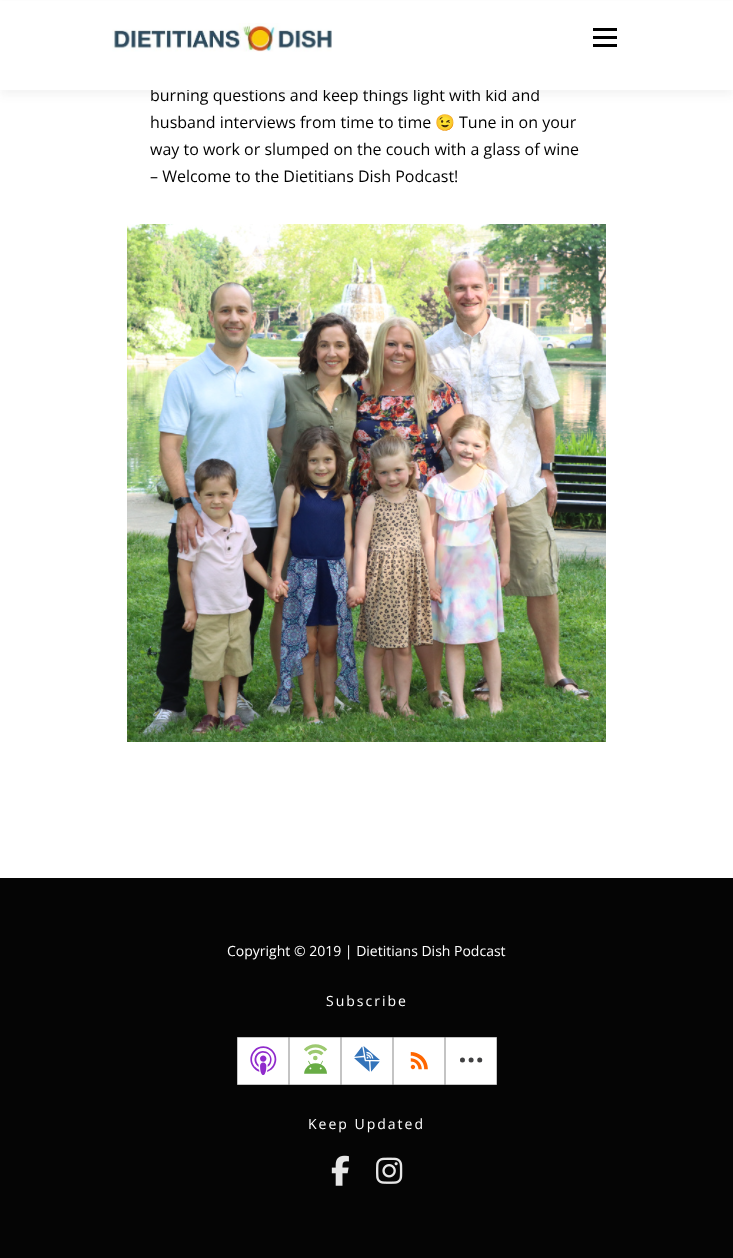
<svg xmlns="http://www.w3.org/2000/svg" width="733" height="1258">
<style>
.a{font:16px Open Sans;fill:#000}
.b{font:16px Noto Color Emoji;fill:#000}
.c{font:14px Open Sans;fill:#fff}
.d{font:14px Open Sans;letter-spacing:2px;fill:#fff}
</style>
<rect width="100%" height="100%" fill="#fff"/>
<path fill="#3232320f" filter="blur(5px)" d="M0 5h733v90H0z"/>
<image href="2.png" x="127" y="224" width="479" height="518"/>
<path fill="#050505" d="M0 878h733v380H0z"/>
<path fill="#fff" stroke="#c4c4c4" d="M237.5 1037.5h51v47H237.5z"/>
<image href="3.png" x="250" y="1046" width="27" height="29"/>
<path fill="#fff" stroke="#c4c4c4" d="M289.5 1037.5h51v47H289.5z"/>
<image href="4.png" x="304" y="1044" width="24" height="30"/>
<path fill="#fff" stroke="#c4c4c4" d="M341.5 1037.5h51v47H341.5z"/>
<image href="5.png" x="354" y="1046" width="26" height="26"/>
<path fill="#fff" stroke="#c4c4c4" d="M393.5 1037.5h51v47H393.5z"/>
<image href="6.png" x="410" y="1052" width="18" height="18"/>
<path fill="#fff" stroke="#c4c4c4" d="M445.5 1037.5h51v47H445.5z"/>
<image href="7.png" x="460" y="1057" width="23" height="6"/>
<image href="8.png" x="331" y="1155" width="18" height="31"/>
<image href="9.png" x="376" y="1157" width="27" height="27"/>
<text class="a" x="150" y="101">burning questions and keep things light with kid and</text>
<path fill="#fff" d="M0 1h733v89H0z"/>
<path fill="#000" d="M593 44h24v3H593z"/>
<path fill="#000" d="M593 28h24v3H593z"/>
<path fill="#000" d="M593 36h24v3H593z"/>
<image href="1.png" x="112" y="23" width="220" height="29"/>
<text class="a" x="150" y="128">husband interviews from time to time</text>
<text class="b" x="435" y="128">😉</text>
<text class="a" x="459" y="128">Tune in on your</text>
<text class="a" x="150" y="155">way to work or slumped on the couch with a glass of wine</text>
<text class="a" x="150" y="182">– Welcome to the Dietitians Dish Podcast!</text>
<text class="c" x="227" y="956">Copyright © 2019 | Dietitians Dish Podcast</text>
<text class="d" x="326" y="1006">Subscribe</text>
<text class="d" x="308" y="1129">Keep Updated</text>
</svg>
